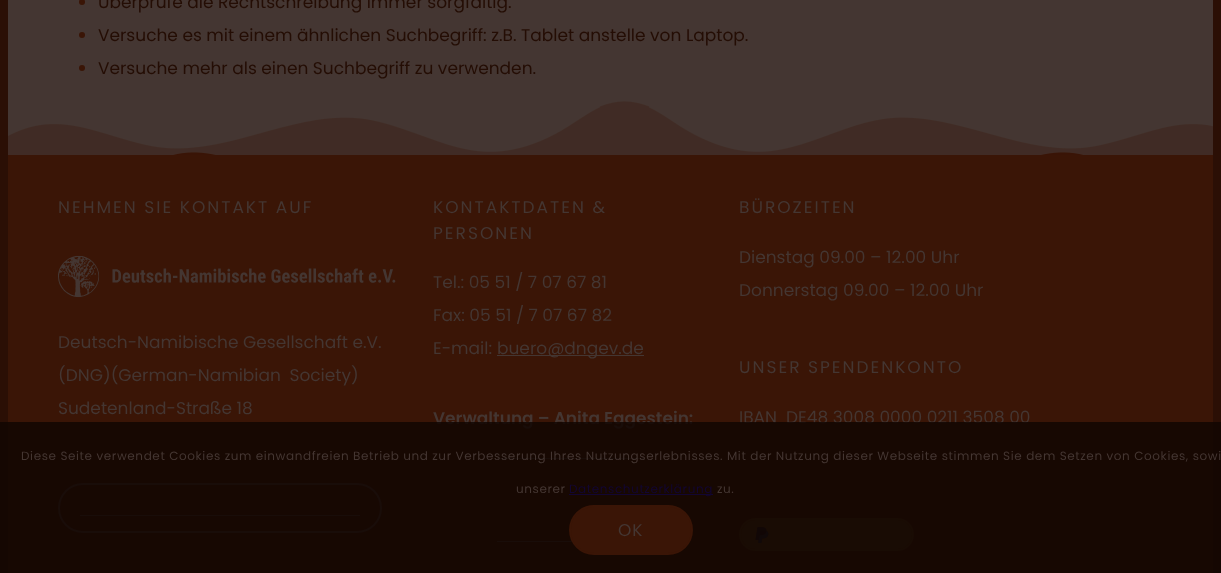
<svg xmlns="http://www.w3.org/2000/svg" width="1221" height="573">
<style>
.a{font:17px Poppins;fill:#240d04}
.b{font:17px Poppins;letter-spacing:2px;fill:#443632}
.c{font:17px Poppins;fill:#443632}
.d{font:600 17px Poppins;fill:#443632}
.e{font:12px Poppins;letter-spacing:0.6px;fill:#443632}
.f{font:12px Poppins;letter-spacing:0.6px;fill:#120632}
.g{font:17px Poppins;letter-spacing:1px;fill:#443632}
</style>
<rect width="100%" height="100%" fill="#2b0f05"/>
<path fill="#443632" d="M8 0h1205v155H8z"/>
<circle fill="#3a1506" cx="82" cy="2" r="3"/>
<circle fill="#3a1506" cx="82" cy="35" r="3"/>
<circle fill="#3a1506" cx="82" cy="68" r="3"/>
<path fill="#3a1506" d="M8 155h1205v418H8z"/>
<image href="2.png" x="173" y="152" width="910" height="3"/>
<image href="1.png" x="8" y="101" width="1205" height="54"/>
<image href="3.png" x="58" y="255" width="338" height="43"/>
<rect fill="none" stroke="#443632" stroke-width="2" x="59" y="484" width="322" height="48" rx="24"/>
<path fill="#443632" d="M80 515h280v1H80z"/>
<path fill="#443632" d="M497 355h147v1H497z"/>
<path fill="#443632" d="M497 458h147v1H497z"/>
<path fill="#443632" d="M497 541h75v1H497z"/>
<rect fill="#452e0e" stroke="#452e0e" stroke-width="2" x="740" y="519" width="173" height="31" rx="15.5"/>
<image href="4.png" x="755" y="527" width="14" height="16"/>
<text class="a" x="98" y="8">Überprüfe die Rechtschreibung immer sorgfältig.</text>
<text class="a" x="98" y="41">Versuche es mit einem ähnlichen Suchbegriff: z.B. Tablet anstelle von Laptop.</text>
<text class="a" x="98" y="74">Versuche mehr als einen Suchbegriff zu verwenden.</text>
<text class="b" x="58" y="213">NEHMEN SIE KONTAKT AUF</text>
<text class="c" x="58" y="348">Deutsch-Namibische Gesellschaft e.V.</text>
<text class="c" x="58" y="381" word-spacing="4">(DNG)(German-Namibian Society)</text>
<text class="c" x="58" y="414">Sudetenland-Straße 18</text>
<text class="b" x="433" y="213">KONTAKTDATEN &amp;</text>
<text class="b" x="433" y="239">PERSONEN</text>
<text class="c" x="433" y="288">Tel.: 05 51 / 7 07 67 81</text>
<text class="c" x="433" y="321">Fax: 05 51 / 7 07 67 82</text>
<text class="c" x="433" y="354">E-mail:</text>
<text class="c" x="497" y="354">buero@dngev.de</text>
<text class="d" x="433" y="424">Verwaltung – Anita Eggestein:</text>
<text class="b" x="739" y="213">BÜROZEITEN</text>
<text class="c" x="739" y="263">Dienstag 09.00 – 12.00 Uhr</text>
<text class="c" x="739" y="296">Donnerstag 09.00 – 12.00 Uhr</text>
<text class="b" x="739" y="373">UNSER SPENDENKONTO</text>
<text class="c" xml:space="preserve" x="739" y="423">IBAN  DE48 3008 0000 0211 3508 00</text>
<path fill="#120602d9" d="M0 422h1221v151H0z"/>
<text class="e" x="21" y="460">Diese Seite verwendet Cookies zum einwandfreien Betrieb und zur Verbesserung Ihres Nutzungserlebnisses. Mit der Nutzung dieser Webseite stimmen Sie dem Setzen von Cookies, sowi</text>
<text class="e" x="516" y="493">unserer</text>
<path fill="#120632" d="M569 494h144v1H569z"/>
<text class="f" x="569" y="493">Datenschutzerklärung</text>
<text class="e" x="717" y="493">zu.</text>
<rect fill="#3a1506" stroke="#3a1506" stroke-width="2" x="570" y="506" width="122" height="48" rx="24"/>
<text class="g" x="618" y="536">OK</text>
</svg>
